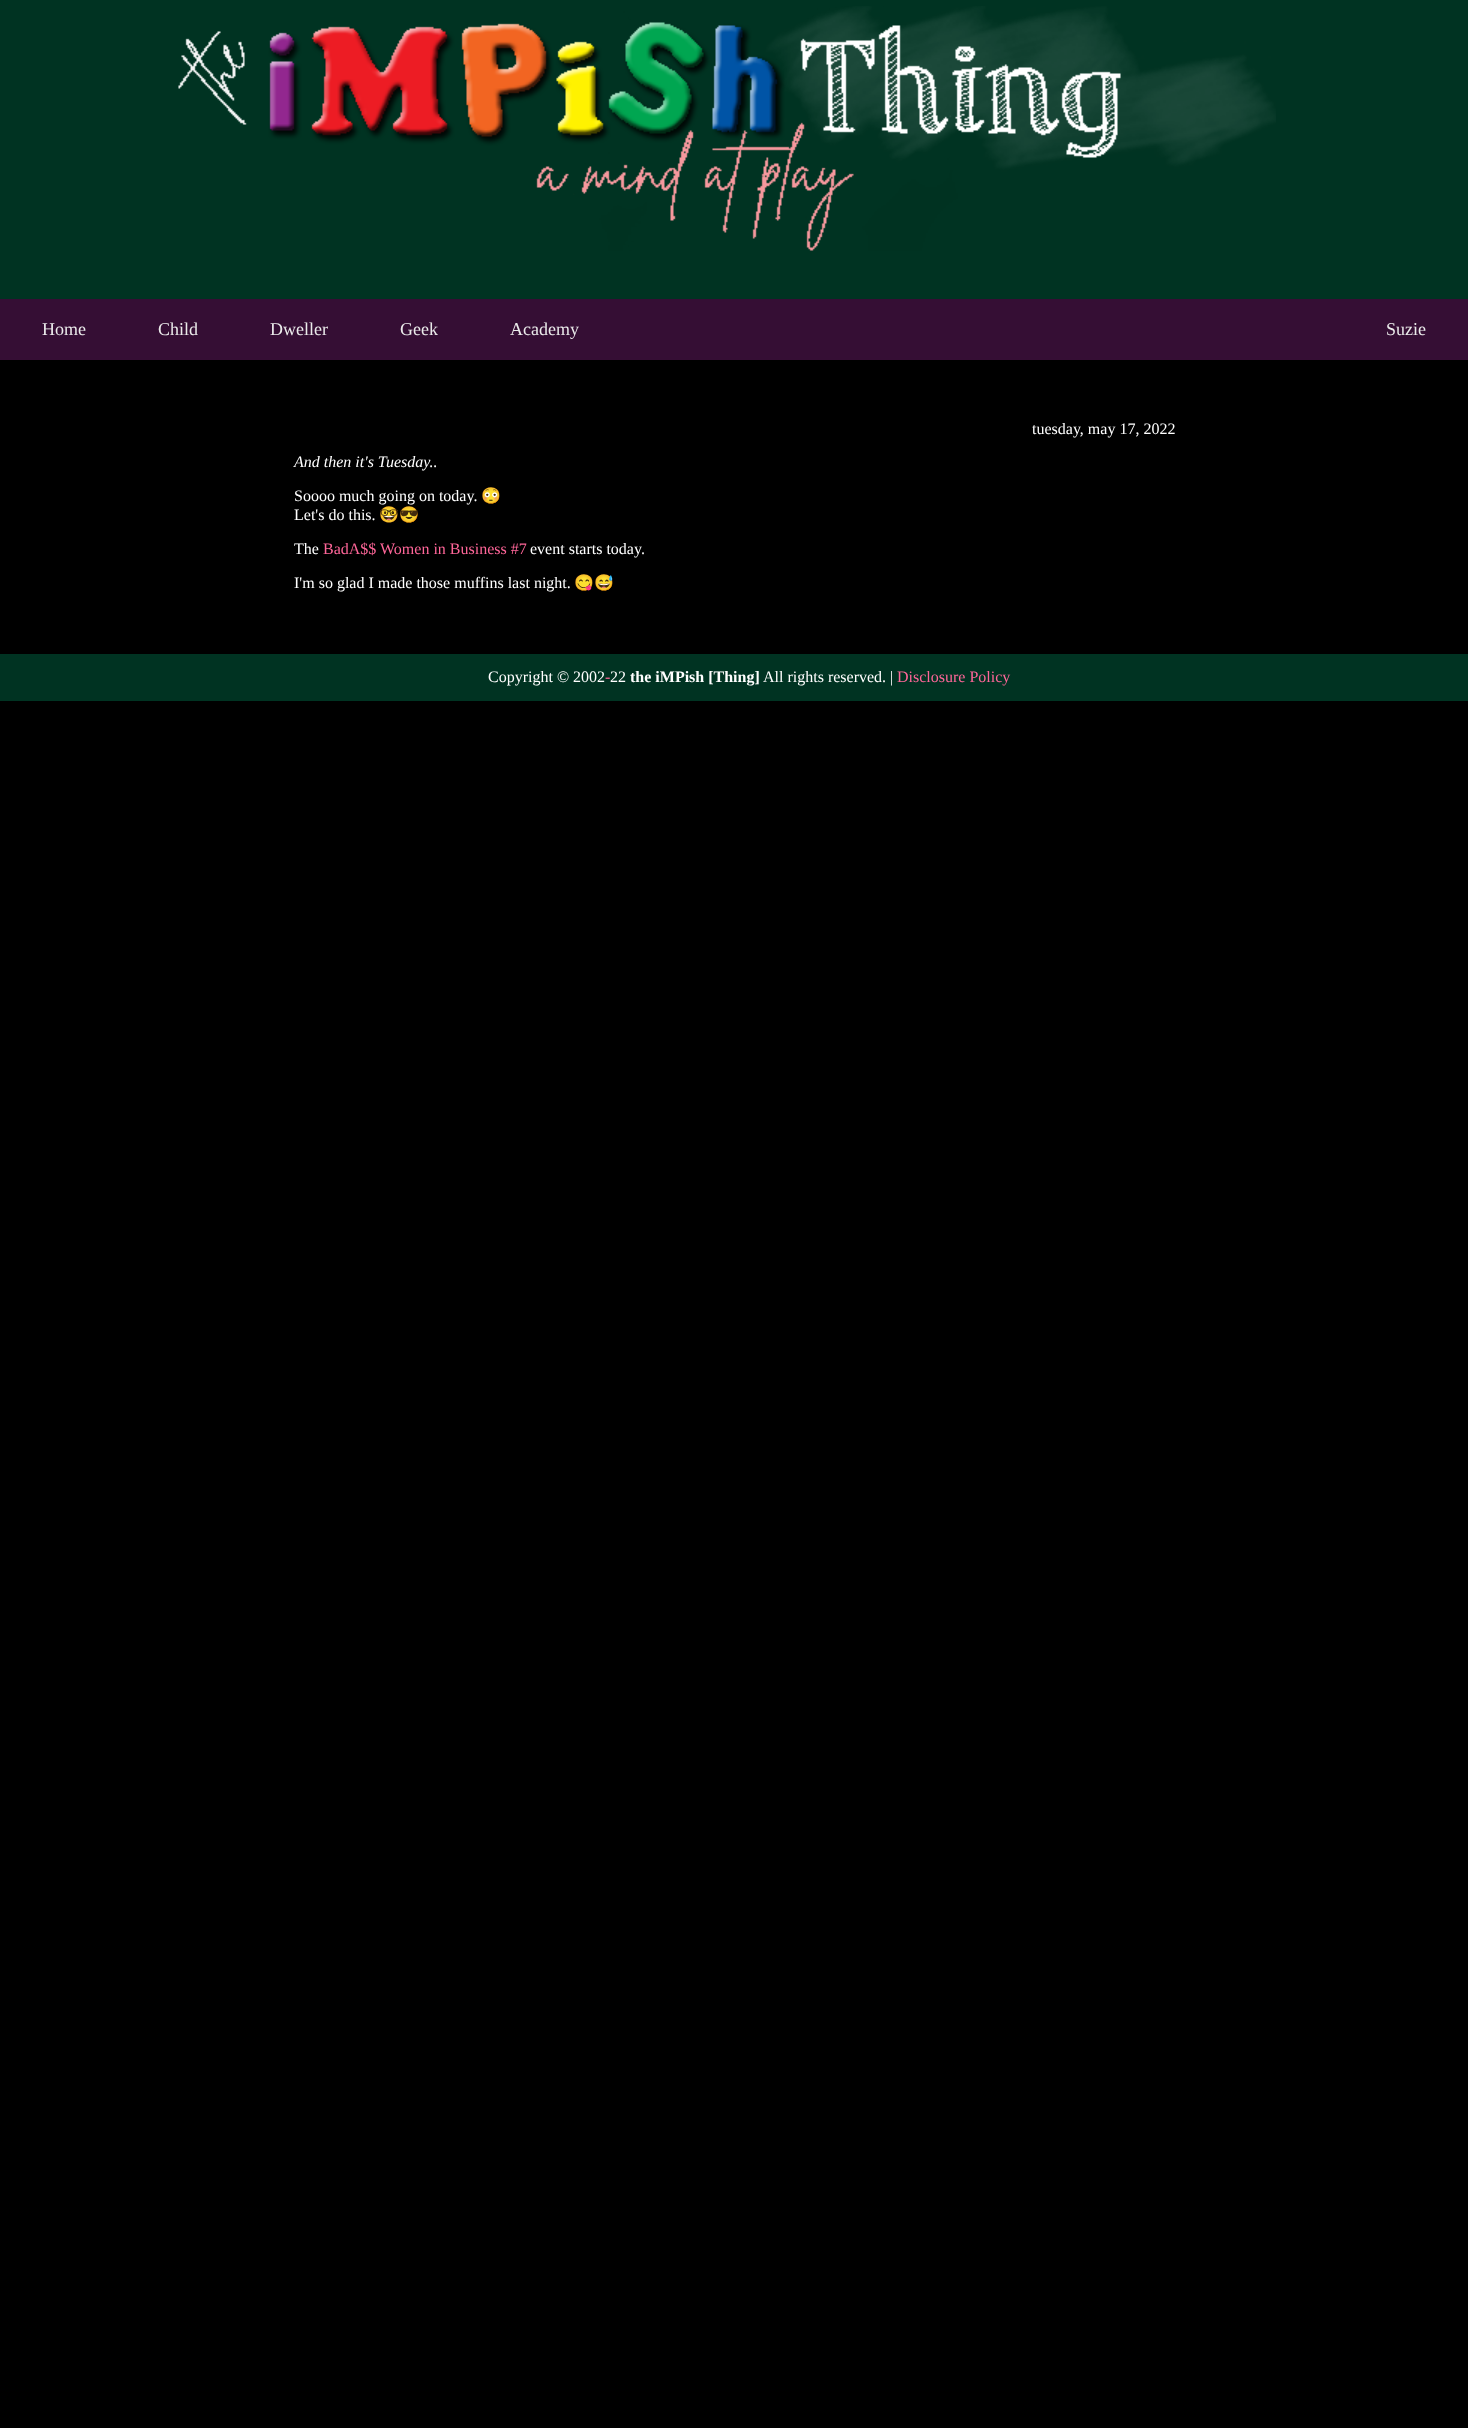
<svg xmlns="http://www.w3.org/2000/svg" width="1468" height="2428">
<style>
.a{font:18px Liberation Serif;fill:#ebebeb}
.b{font:16px Liberation Serif;fill:#fff}
.c{font:italic 16px Liberation Serif;fill:#fff}
.d{font:16px Noto Color Emoji;fill:#fff}
.e{font:16px Liberation Serif;fill:#f69}
.f{font:bold 16px Liberation Serif;fill:#fff}
</style>
<rect width="100%" height="100%" fill="#000"/>
<path fill="#032" d="M0 0h1468v299H0z"/>
<image href="1.png" x="178" y="6" width="1098" height="245"/>
<path fill="#350e34" d="M0 299h1468v61H0z"/>
<path fill="#032" d="M0 654h1468v47H0z"/>
<text class="a" x="42" y="335">Home</text>
<text class="a" x="158" y="335">Child</text>
<text class="a" x="270" y="335">Dweller</text>
<text class="a" x="400" y="335">Geek</text>
<text class="a" x="510" y="335">Academy</text>
<text class="a" x="1386" y="335">Suzie</text>
<text class="b" x="1032" y="434">tuesday, may 17, 2022</text>
<text class="c" x="294" y="467">And then it's Tuesday..</text>
<text class="b" x="294" y="501">Soooo much going on today.</text>
<text class="d" x="481" y="501">😳</text>
<text class="b" x="294" y="520">Let's do this.</text>
<text class="d" x="379" y="520">🤓😎</text>
<text class="b" x="294" y="554">The</text>
<text class="e" x="323" y="554">BadA$$ Women in Business #7</text>
<text class="b" x="530" y="554">event starts today.</text>
<text class="b" x="294" y="588">I'm so glad I made those muffins last night.</text>
<text class="d" x="574" y="588">😋😅</text>
<text class="b" x="488" y="682">Copyright © 2002</text>
<text class="e" x="605" y="682">-</text>
<text class="b" x="610" y="682">22</text>
<text class="f" x="630" y="682">the iMPish [Thing]</text>
<text class="b" x="763" y="682">All rights reserved. |</text>
<text class="e" x="897" y="682">Disclosure Policy</text>
</svg>
